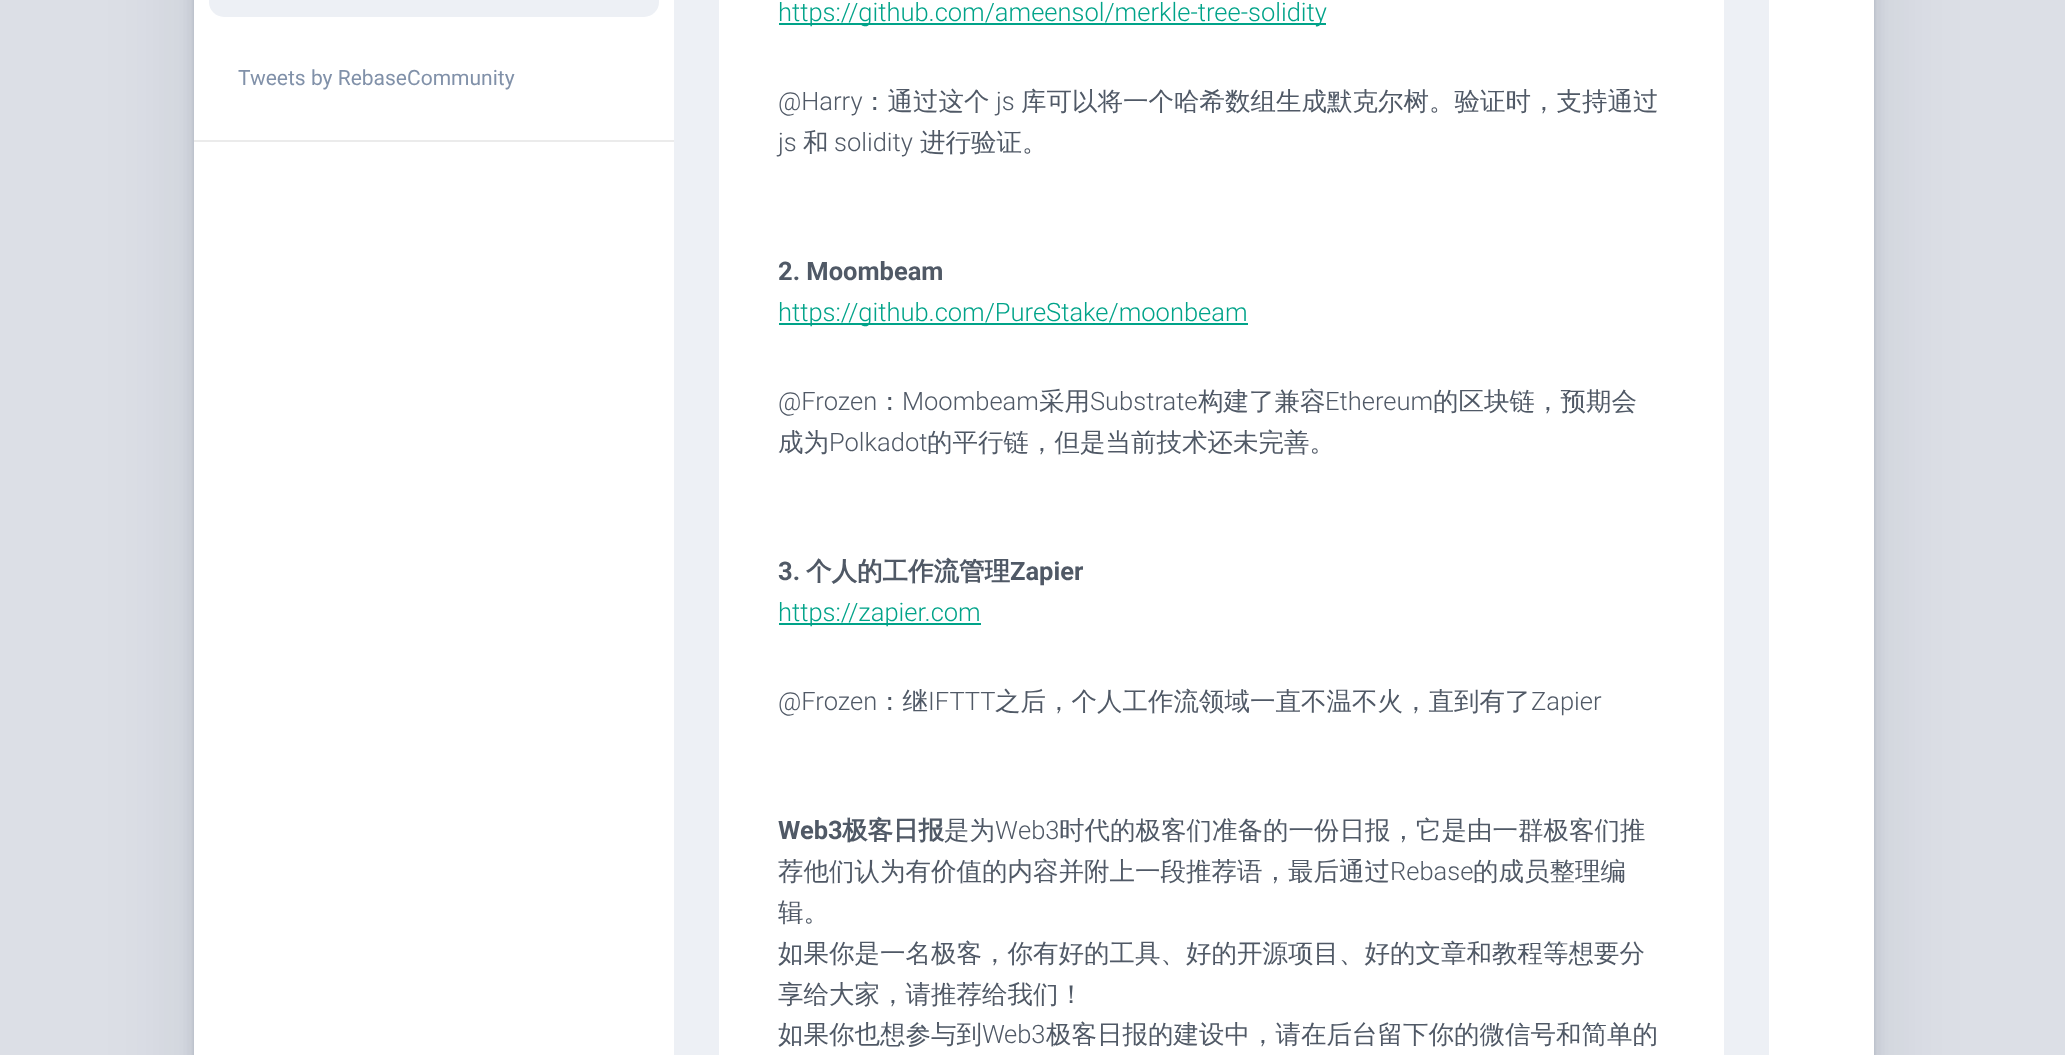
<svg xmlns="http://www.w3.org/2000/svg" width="2065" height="1055">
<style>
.a{font:21px Roboto;fill:#8191a9}
.b{font:300 25.5px Roboto;fill:#00a389}
.c{font:300 25.5px Roboto;fill:#505966}
.d{font:500 25.5px WenQuanYi Zen Hei;fill:#505966}
.e{font:bold 25.5px Roboto;fill:#505966}
.f{font:bold 25.5px WenQuanYi Zen Hei;fill:#505966}
</style>
<rect width="100%" height="100%" fill="#dcdfe6"/>
<rect fill="#0712321a" filter="blur(1.5px)" x="194" y="-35" width="1680" height="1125" rx="30"/>
<rect fill="#0712321a" filter="blur(7.5px)" x="194" y="-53" width="1680" height="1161" rx="30"/>
<rect fill="#0712321a" filter="blur(45px)" x="194" y="-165" width="1680" height="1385" rx="30"/>
<path fill="#fff" d="M194 0h1680v1055H194z"/>
<rect fill="#edf0f5" x="209" y="-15" width="450" height="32" rx="15"/>
<path fill="#ebebeb" d="M194 140h480v2H194z"/>
<path fill="#edf0f5" d="M674 0h1095v1055H674z"/>
<path fill="#fff" d="M719 0h1005v1055H719z"/>
<path fill="#00a389" d="M779 23h547v2H779z"/>
<path fill="#00a389" d="M779 323h469v2H779z"/>
<path fill="#00a389" d="M779 623h202v2H779z"/>
<text class="a" x="238" y="85">Tweets by RebaseCommunity</text>
<text class="b" x="778" y="21">https://github.com/ameensol/merkle-tree-solidity</text>
<text class="c" x="778" y="110">@Harry</text>
<text class="d" x="862" y="110">：通过这个</text>
<text class="c" x="996" y="110">js</text>
<text class="d" x="1021" y="110">库可以将一个哈希数组生成默克尔树。验证时，支持通过</text>
<text class="c" x="778" y="151">js</text>
<text class="d" x="803" y="151">和</text>
<text class="c" x="834" y="151">solidity</text>
<text class="d" x="920" y="151">进行验证。</text>
<text class="e" x="778" y="280">2. Moombeam</text>
<text class="b" x="778" y="321">https://github.com/PureStake/moonbeam</text>
<text class="c" x="778" y="410">@Frozen</text>
<text class="d" x="877" y="410">：</text>
<text class="c" x="902" y="410">Moombeam</text>
<text class="d" x="1039" y="410">采用</text>
<text class="c" x="1090" y="410">Substrate</text>
<text class="d" x="1198" y="410">构建了兼容</text>
<text class="c" x="1325" y="410">Ethereum</text>
<text class="d" x="1433" y="410">的区块链，预期会</text>
<text class="d" x="778" y="451">成为</text>
<text class="c" x="829" y="451">Polkadot</text>
<text class="d" x="927" y="451">的平行链，但是当前技术还未完善。</text>
<text class="e" x="778" y="580">3.</text>
<text class="f" x="806" y="580">个人的工作流管理</text>
<text class="e" x="1010" y="580">Zapier</text>
<text class="b" x="778" y="621">https://zapier.com</text>
<text class="c" x="778" y="710">@Frozen</text>
<text class="d" x="877" y="710">：继</text>
<text class="c" x="928" y="710">IFTTT</text>
<text class="d" x="995" y="710">之后，个人工作流领域一直不温不火，直到有了</text>
<text class="c" x="1531" y="710">Zapier</text>
<text class="e" x="778" y="839">W</text>
<text class="e" x="800" y="839">eb3</text>
<text class="f" x="842" y="839">极客日报</text>
<text class="d" x="944" y="839">是为</text>
<text class="c" x="995" y="839">W</text>
<text class="c" x="1018" y="839">eb3</text>
<text class="d" x="1059" y="839">时代的极客们准备的一份日报，它是由一群极客们推</text>
<text class="d" x="778" y="880">荐他们认为有价值的内容并附上一段推荐语，最后通过</text>
<text class="c" x="1390" y="880">Rebase</text>
<text class="d" x="1473" y="880">的成员整理编</text>
<text class="d" x="778" y="921">辑。</text>
<text class="d" x="778" y="962">如果你是一名极客，你有好的工具、好的开源项目、好的文章和教程等想要分</text>
<text class="d" x="778" y="1003">享给大家，请推荐给我们！</text>
<text class="d" x="778" y="1043">如果你也想参与到</text>
<text class="c" x="982" y="1043">W</text>
<text class="c" x="1004" y="1043">eb3</text>
<text class="d" x="1046" y="1043">极客日报的建设中，请在后台留下你的微信号和简单的</text>
</svg>
